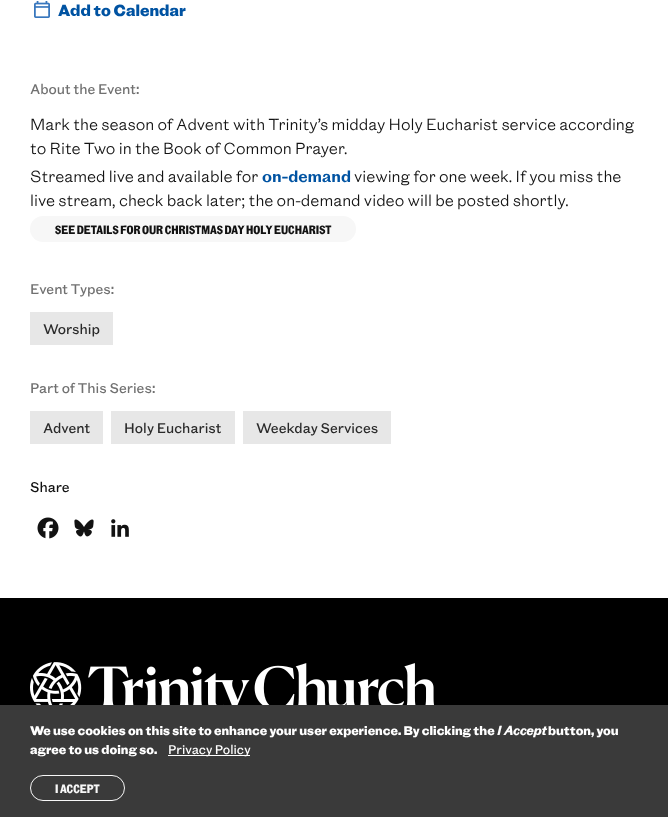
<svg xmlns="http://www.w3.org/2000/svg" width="668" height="817">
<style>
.a{font:bold 16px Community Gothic;fill:#0053a2}
.b{font:14px Community Gothic;fill:#717171}
.c{font:300 16px Community Gothic;fill:#121212}
.d{font:500 16px Community Gothic;fill:#0053a2}
.e{font:bold 12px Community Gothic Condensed;fill:#121212}
.f{font:14px Community Gothic;fill:#2a2a2a}
.g{font:14px Community Gothic;fill:#121212}
.h{font:bold 12.6px Community Gothic;fill:#fff}
.i{font:italic bold 12.6px Community Gothic;fill:#fff}
.j{font:12.6px Community Gothic;fill:#fff}
.k{font:bold 12px Community Gothic Condensed;fill:#f7f7f7}
</style>
<rect width="100%" height="100%" fill="#fff"/>
<image href="1.png" x="34" y="1" width="16" height="17"/>
<rect fill="#f7f7f7" x="30" y="216" width="326" height="26" rx="13"/>
<path fill="#e7e7e7" d="M30 312h83v33H30z"/>
<path fill="#e7e7e7" d="M30 411h73v33H30z"/>
<path fill="#e7e7e7" d="M111 411h124v33H111z"/>
<path fill="#e7e7e7" d="M243 411h148v33H243z"/>
<image href="2.png" x="37" y="517" width="22" height="22"/>
<image href="3.png" x="74" y="519" width="20" height="18"/>
<image href="4.png" x="111" y="519" width="18" height="18"/>
<path fill="#000" d="M0 598h668v107H0z"/>
<image href="5.png" x="30" y="662" width="404" height="43"/>
<path fill="#3a3a3a" d="M0 705h668v112H0z"/>
<path fill="#fff" d="M168 755h82v1H168z"/>
<rect fill="none" stroke="#f7f7f7" x="30.5" y="775.5" width="94" height="25" rx="12.5"/>
<text class="a" x="58" y="16">Add to Calendar</text>
<text class="b" x="30" y="94">About the Event:</text>
<text class="c" x="30" y="130">Mark the season of Advent with Trinity’s midday Holy Eucharist service according</text>
<text class="c" x="30" y="154">to Rite Two in the Book of Common Prayer.</text>
<text class="c" x="30" y="182">Streamed live and available for</text>
<text class="d" x="262" y="182">on-demand</text>
<text class="c" x="354" y="182">viewing for one week. If you miss the</text>
<text class="c" x="30" y="206">live stream, check back later; the on-demand video will be posted shortly.</text>
<text class="e" x="55" y="234">SEE DETAILS FOR OUR CHRISTMAS DAY HOLY EUCHARIST</text>
<text class="b" x="30" y="294">Event Types:</text>
<text class="f" x="43" y="334">Worship</text>
<text class="b" x="30" y="393">Part of This Series:</text>
<text class="f" x="43" y="433">Advent</text>
<text class="f" x="124" y="433">Holy Eucharist</text>
<text class="f" x="256" y="433">Weekday Services</text>
<text class="g" x="30" y="492">Share</text>
<text class="h" x="30" y="735">We use cookies on this site to enhance your user experience. By clicking the</text>
<text class="i" x="497" y="735">I Accept</text>
<text class="h" x="548" y="735">button, you</text>
<text class="h" x="30" y="754">agree to us doing so.</text>
<text class="j" x="168" y="754">Privacy Policy</text>
<text class="k" x="55" y="793">I ACCEPT</text>
</svg>
